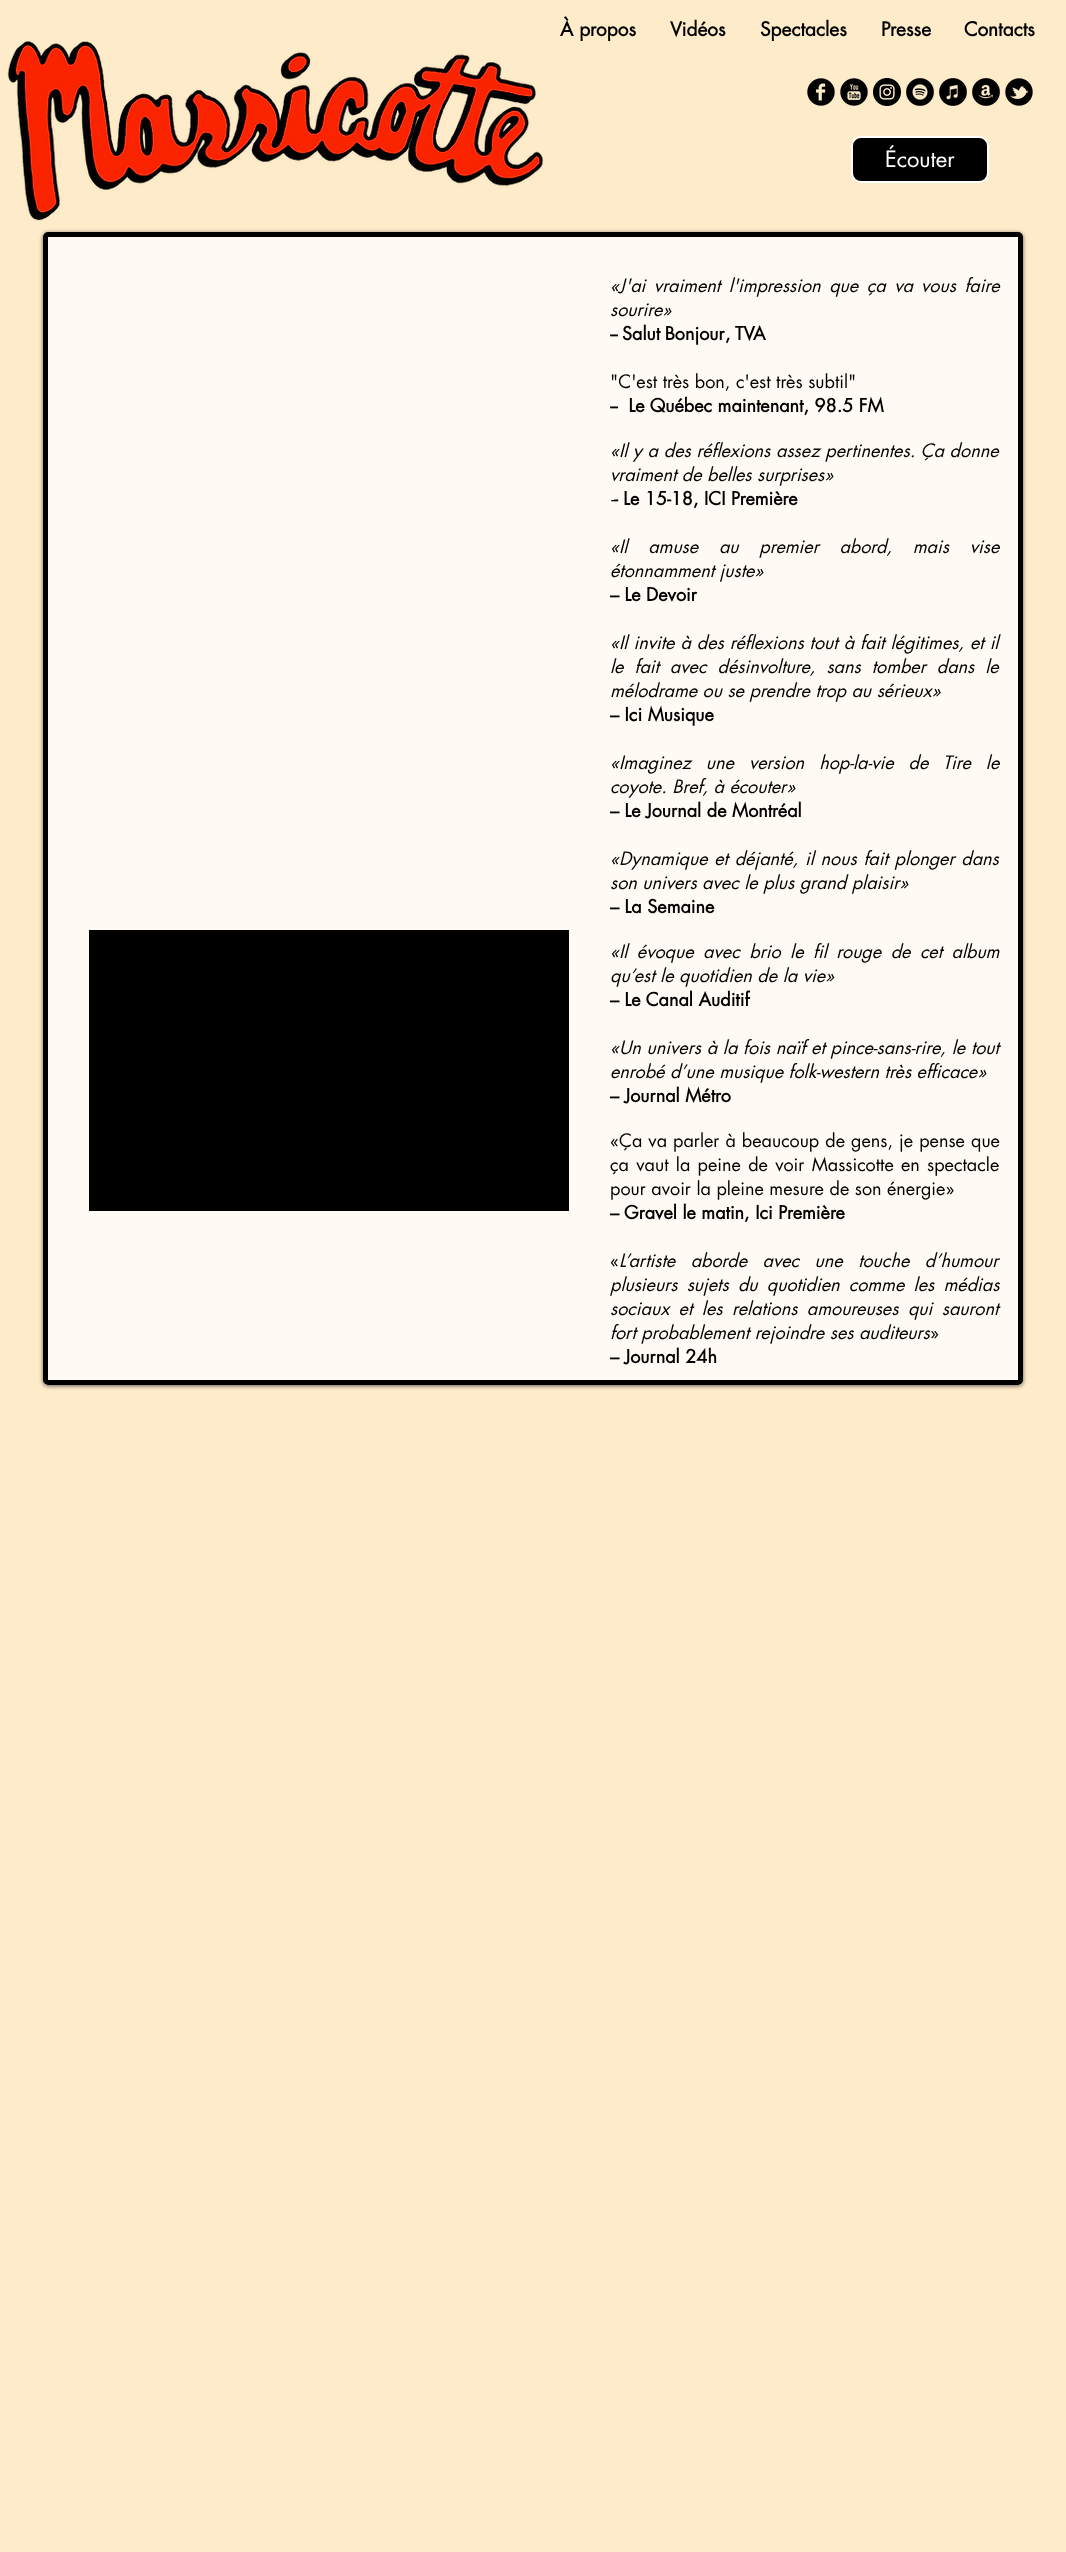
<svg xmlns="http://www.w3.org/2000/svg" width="1066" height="2552">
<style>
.a{font:bold 19px futura;fill:#000}
.b{font:22px futura;fill:#fff}
.c{font:italic 18px futura;fill:#000}
.d{font:bold 18px futura;fill:#000}
.e{font:18px futura;fill:#000}
</style>
<defs>
<clipPath id="clip1"><path d="M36 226h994v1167h-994zm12 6h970c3 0 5 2 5 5v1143c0 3-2 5-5 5h-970c-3 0-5-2-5-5v-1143c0-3 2-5 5-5z" clip-rule="evenodd"/></clipPath>
</defs>
<rect width="100%" height="100%" fill="#fdebc9"/>
<image href="1.png" x="807" y="78" width="28" height="28"/>
<image href="2.png" x="840" y="78" width="28" height="28"/>
<image href="3.png" x="873" y="78" width="28" height="28"/>
<image href="4.png" x="906" y="78" width="28" height="28"/>
<image href="5.png" x="939" y="78" width="28" height="28"/>
<image href="6.png" x="972" y="78" width="28" height="28"/>
<image href="7.png" x="1005" y="78" width="28" height="28"/>
<image href="8.png" x="7" y="41" width="537" height="180"/>
<rect fill="#000" stroke="#fff" stroke-width="2" x="852" y="137" width="136" height="45" rx="9"/>
<g clip-path="url(#clip1)">
<rect fill="#00000099" filter="blur(2px)" x="43" y="233" width="980" height="1153" rx="5"/>
</g>
<rect fill="#ffffffcc" stroke="#000" stroke-width="5" x="45.5" y="234.5" width="975" height="1148" rx="2.5"/>
<path fill="#000" d="M89 930h480v281H89z"/>
<text class="a" x="560" y="36">À propos</text>
<text class="a" x="670" y="36">Vidéos</text>
<text class="a" x="760" y="36">Spectacles</text>
<text class="a" x="881" y="36">Presse</text>
<text class="a" x="964" y="36">Contacts</text>
<text class="b" x="885" y="167">Écouter</text>
<text class="c" x="610" y="292">«J</text>
<text class="c" x="625" y="292" word-spacing="3">'ai vraiment l'impression que ça va</text>
<text class="c" x="921" y="292" word-spacing="3">vous faire</text>
<text class="c" x="610" y="316">sourire»</text>
<text class="d" x="610" y="340" word-spacing="-1">-- Salut Bonjour</text>
<text class="d" x="725" y="340">,</text>
<text class="d" x="735" y="340">TVA</text>
<text class="e" x="610" y="388">"C'est très bon, c'est très subtil"</text>
<text class="d" xml:space="preserve" x="610" y="412">--  Le Québec maintenant, 98.5 FM</text>
<text class="c" x="610" y="457" word-spacing="0.25">«Il y a des réflexions assez pertinentes. Ça donne</text>
<text class="c" x="610" y="481">vraiment de belles surprises»</text>
<text class="c" x="610" y="505">-</text>
<text class="d" x="614" y="505">- Le 15-18, ICI Première</text>
<text class="c" x="610" y="553" word-spacing="15.25">«Il amuse au premier abord, mais vise</text>
<text class="c" x="610" y="577">étonnamment juste»</text>
<text class="d" x="610" y="601">– Le Devoir</text>
<text class="c" x="610" y="649" word-spacing="0.5">«Il invite à des réflexions tout à fait légitimes, et il</text>
<text class="c" x="610" y="673" word-spacing="5.5">le fait avec désinvolture, sans tomber dans le</text>
<text class="c" x="610" y="697">mélodrame ou se prendre trop au sérieux»</text>
<text class="d" x="610" y="721">– Ici Musique</text>
<text class="c" x="610" y="769" word-spacing="9.5">«Imaginez une version hop-la-vie de Tire le</text>
<text class="c" x="610" y="793">coyote. Bref, à écouter»</text>
<text class="d" x="610" y="817">– Le Journal de Montréal</text>
<text class="c" x="610" y="865" word-spacing="1.25">«Dynamique et déjanté, il nous fait plonger dans</text>
<text class="c" x="610" y="889">son univers avec le plus grand plaisir»</text>
<text class="d" x="610" y="913">– La Semaine</text>
<text class="c" x="610" y="958" word-spacing="4">«Il évoque avec brio le fil rouge de cet album</text>
<text class="c" x="610" y="982">qu’est le quotidien de la vie»</text>
<text class="d" x="610" y="1006">– Le Canal Auditif</text>
<text class="c" x="610" y="1054" word-spacing="0.25">«Un univers à la fois naïf et pince-sans-rire, le tout</text>
<text class="c" x="610" y="1078">enrobé d’une musique folk-western très efficace»</text>
<text class="d" x="610" y="1102">– Journal Métro</text>
<text class="e" x="610" y="1147" word-spacing="0.5">«Ça va parler à beaucoup de gens, je pense que</text>
<text class="e" x="610" y="1171" word-spacing="1.75">ça vaut la peine de voir Massicotte en spectacle</text>
<text class="e" x="610" y="1195">pour avoir la pleine mesure de son énergie»</text>
<text class="d" x="610" y="1219">– Gravel le matin, Ici Première</text>
<text class="e" x="610" y="1267">«</text>
<text class="c" x="619" y="1267" word-spacing="10">L’artiste aborde avec une touche d’humour</text>
<text class="c" x="610" y="1291" word-spacing="3.75">plusieurs sujets du quotidien comme les médias</text>
<text class="c" x="610" y="1315" word-spacing="4">sociaux et les relations amoureuses qui sauront</text>
<text class="c" x="610" y="1339">fort probablement rejoindre ses auditeurs</text>
<text class="e" x="930" y="1339">»</text>
<text class="d" x="610" y="1363">– Journal 24h</text>
</svg>
